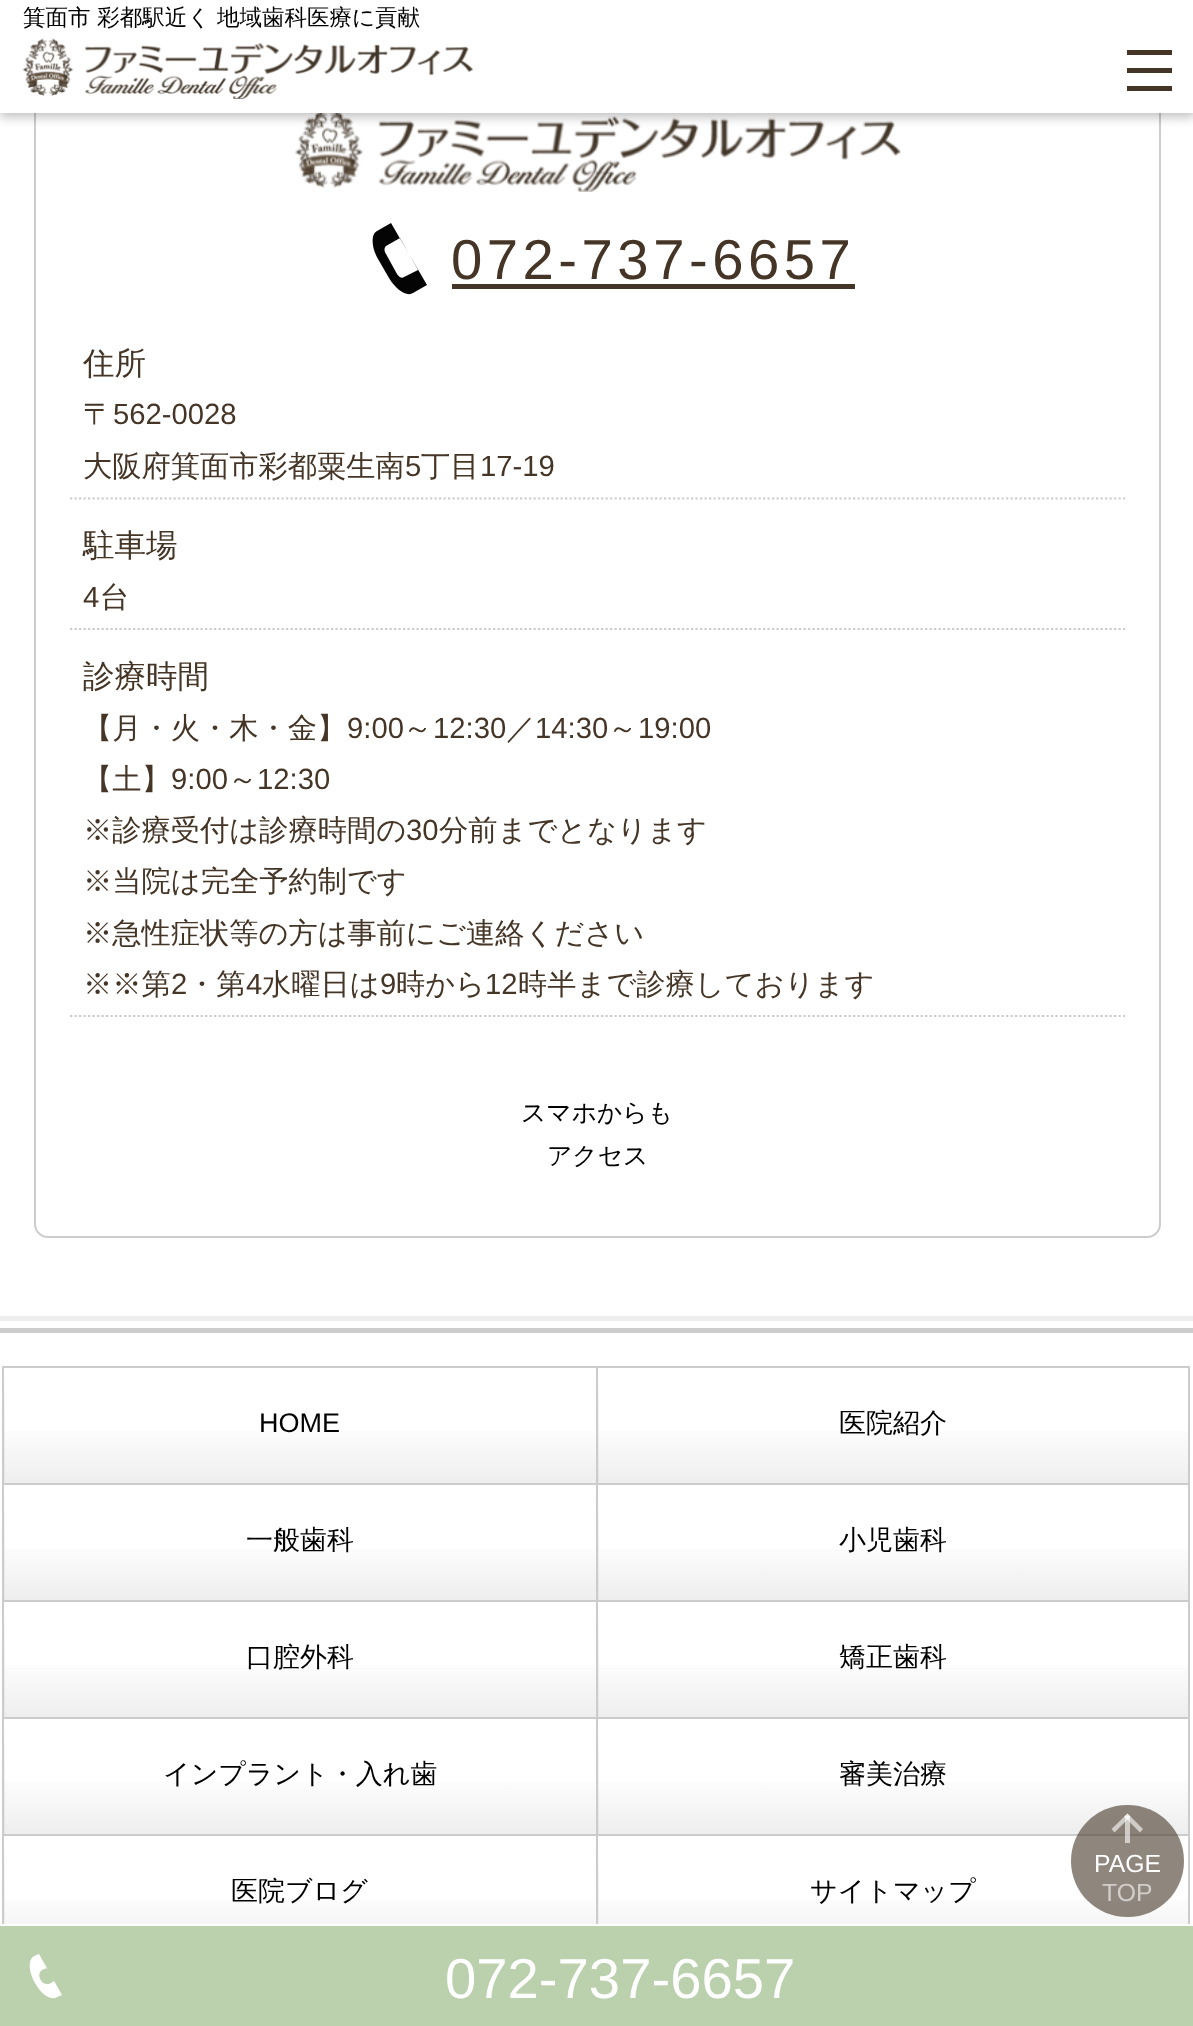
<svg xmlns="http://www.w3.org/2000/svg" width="1193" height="2026">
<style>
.a{font:500 22.5px WenQuanYi Zen Hei;fill:#000}
.b{font:56.25px Liberation Sans;letter-spacing:4.5px;fill:#453526}
.c{font:500 31.5px WenQuanYi Zen Hei;fill:#453526}
.d{font:500 29.25px WenQuanYi Zen Hei;fill:#453526}
.e{font:29.25px Liberation Sans;fill:#453526}
.f{font:500 24.75px WenQuanYi Zen Hei;fill:#000}
.g{font:27px Liberation Sans;fill:#000}
.h{font:500 27px WenQuanYi Zen Hei;fill:#000}
.i{font:24.75px Liberation Sans;fill:#fff}
.j{font:24.75px Liberation Sans;fill:#d2cecb}
.k{font:56.25px Liberation Sans;fill:#fff}
</style>
<defs>
<linearGradient id="g1" gradientUnits="userSpaceOnUse" x1="300" y1="1368" x2="300" y2="1483"><stop offset="0" stop-color="#fff"/><stop offset="1" stop-color="#e5e5e5"/></linearGradient>
<linearGradient id="g2" gradientUnits="userSpaceOnUse" x1="300" y1="1368" x2="300" y2="1483"><stop offset="0.47" stop-color="#fff"/><stop offset="1" stop-color="#eee"/></linearGradient>
<linearGradient id="g3" gradientUnits="userSpaceOnUse" x1="893" y1="1368" x2="893" y2="1483"><stop offset="0" stop-color="#fff"/><stop offset="1" stop-color="#e5e5e5"/></linearGradient>
<linearGradient id="g4" gradientUnits="userSpaceOnUse" x1="893" y1="1368" x2="893" y2="1483"><stop offset="0.47" stop-color="#fff"/><stop offset="1" stop-color="#eee"/></linearGradient>
<linearGradient id="g5" gradientUnits="userSpaceOnUse" x1="300" y1="1485" x2="300" y2="1600"><stop offset="0" stop-color="#fff"/><stop offset="1" stop-color="#e5e5e5"/></linearGradient>
<linearGradient id="g6" gradientUnits="userSpaceOnUse" x1="300" y1="1485" x2="300" y2="1600"><stop offset="0.47" stop-color="#fff"/><stop offset="1" stop-color="#eee"/></linearGradient>
<linearGradient id="g7" gradientUnits="userSpaceOnUse" x1="893" y1="1485" x2="893" y2="1600"><stop offset="0" stop-color="#fff"/><stop offset="1" stop-color="#e5e5e5"/></linearGradient>
<linearGradient id="g8" gradientUnits="userSpaceOnUse" x1="893" y1="1485" x2="893" y2="1600"><stop offset="0.47" stop-color="#fff"/><stop offset="1" stop-color="#eee"/></linearGradient>
<linearGradient id="g9" gradientUnits="userSpaceOnUse" x1="300" y1="1602" x2="300" y2="1717"><stop offset="0" stop-color="#fff"/><stop offset="1" stop-color="#e5e5e5"/></linearGradient>
<linearGradient id="g10" gradientUnits="userSpaceOnUse" x1="300" y1="1602" x2="300" y2="1717"><stop offset="0.47" stop-color="#fff"/><stop offset="1" stop-color="#eee"/></linearGradient>
<linearGradient id="g11" gradientUnits="userSpaceOnUse" x1="893" y1="1602" x2="893" y2="1717"><stop offset="0" stop-color="#fff"/><stop offset="1" stop-color="#e5e5e5"/></linearGradient>
<linearGradient id="g12" gradientUnits="userSpaceOnUse" x1="893" y1="1602" x2="893" y2="1717"><stop offset="0.47" stop-color="#fff"/><stop offset="1" stop-color="#eee"/></linearGradient>
<linearGradient id="g13" gradientUnits="userSpaceOnUse" x1="300" y1="1719" x2="300" y2="1834"><stop offset="0" stop-color="#fff"/><stop offset="1" stop-color="#e5e5e5"/></linearGradient>
<linearGradient id="g14" gradientUnits="userSpaceOnUse" x1="300" y1="1719" x2="300" y2="1834"><stop offset="0.47" stop-color="#fff"/><stop offset="1" stop-color="#eee"/></linearGradient>
<linearGradient id="g15" gradientUnits="userSpaceOnUse" x1="893" y1="1719" x2="893" y2="1834"><stop offset="0" stop-color="#fff"/><stop offset="1" stop-color="#e5e5e5"/></linearGradient>
<linearGradient id="g16" gradientUnits="userSpaceOnUse" x1="893" y1="1719" x2="893" y2="1834"><stop offset="0.47" stop-color="#fff"/><stop offset="1" stop-color="#eee"/></linearGradient>
<linearGradient id="g17" gradientUnits="userSpaceOnUse" x1="300" y1="1836" x2="300" y2="1951"><stop offset="0" stop-color="#fff"/><stop offset="1" stop-color="#e5e5e5"/></linearGradient>
<linearGradient id="g18" gradientUnits="userSpaceOnUse" x1="300" y1="1836" x2="300" y2="1951"><stop offset="0.47" stop-color="#fff"/><stop offset="1" stop-color="#eee"/></linearGradient>
<linearGradient id="g19" gradientUnits="userSpaceOnUse" x1="893" y1="1836" x2="893" y2="1951"><stop offset="0" stop-color="#fff"/><stop offset="1" stop-color="#e5e5e5"/></linearGradient>
<linearGradient id="g20" gradientUnits="userSpaceOnUse" x1="893" y1="1836" x2="893" y2="1951"><stop offset="0.47" stop-color="#fff"/><stop offset="1" stop-color="#eee"/></linearGradient>
</defs>
<rect width="100%" height="100%" fill="#fff"/>
<rect fill="none" stroke="#ccc" stroke-width="2" x="35" y="19" width="1125" height="1218" rx="13"/>
<image href="2.png" x="295" y="113" width="606" height="79"/>
<path fill="#08010340" filter="blur(5.5px)" d="M0 5h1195v112H0z"/>
<path fill="#fff" d="M0 0h1193v113H0z"/>
<image href="1.png" x="22" y="38" width="451" height="62"/>
<path fill="#453526" d="M1127 50h45v5H1127z"/>
<path fill="#453526" d="M1127 68h45v5H1127z"/>
<path fill="#453526" d="M1127 86h45v5H1127z"/>
<path fill="#040404" fill-rule="evenodd" d="M377 231l14-8l36 62l-14 8c-6 4-17-3-24-15l-11-19c-7-12-7-25-1-28zm9 15l14-8l18 32l-14 7c-2 2-5 0-7-3l-11-20c-2-3-2-6 0-8z"/>
<path fill="#453526" d="M452 284h403v5H452z"/>
<path fill="none" stroke="#ccc" stroke-width="2.2" stroke-dasharray="2.25 2.25" d="M70 498.5h1055"/>
<path fill="none" stroke="#ccc" stroke-width="2.2" stroke-dasharray="2.25 2.25" d="M70 629h1055"/>
<path fill="none" stroke="#ccc" stroke-width="2.2" stroke-dasharray="2.25 2.25" d="M70 1016h1055"/>
<path fill="#eee" d="M0 1316h1193v5H0z"/>
<path fill="#ccc" d="M0 1328h1193v5H0z"/>
<path fill="url(#g1)" d="M4 1379h1v104H4z"/>
<path fill="none" stroke="#ccc" stroke-width="2" d="M3 1367h595v117H3z"/>
<path fill="url(#g2)" d="M5 1431h591v52H5z"/>
<path fill="url(#g3)" d="M598 1368h1v115H598z"/>
<path fill="none" stroke="#ccc" stroke-width="2" d="M597 1367h592v117H597z"/>
<path fill="url(#g4)" d="M599 1431h589v52H599z"/>
<path fill="url(#g5)" d="M4 1496h1v104H4z"/>
<path fill="none" stroke="#ccc" stroke-width="2" d="M3 1484h595v117H3z"/>
<path fill="url(#g6)" d="M5 1548h591v52H5z"/>
<path fill="url(#g7)" d="M598 1485h1v115H598z"/>
<path fill="none" stroke="#ccc" stroke-width="2" d="M597 1484h592v117H597z"/>
<path fill="url(#g8)" d="M599 1548h589v52H599z"/>
<path fill="url(#g9)" d="M4 1613h1v104H4z"/>
<path fill="none" stroke="#ccc" stroke-width="2" d="M3 1601h595v117H3z"/>
<path fill="url(#g10)" d="M5 1665h591v52H5z"/>
<path fill="url(#g11)" d="M598 1602h1v115H598z"/>
<path fill="none" stroke="#ccc" stroke-width="2" d="M597 1601h592v117H597z"/>
<path fill="url(#g12)" d="M599 1665h589v52H599z"/>
<path fill="url(#g13)" d="M4 1730h1v104H4z"/>
<path fill="none" stroke="#ccc" stroke-width="2" d="M3 1718h595v117H3z"/>
<path fill="url(#g14)" d="M5 1782h591v52H5z"/>
<path fill="url(#g15)" d="M598 1719h1v115H598z"/>
<path fill="none" stroke="#ccc" stroke-width="2" d="M597 1718h592v117H597z"/>
<path fill="url(#g16)" d="M599 1782h589v52H599z"/>
<path fill="url(#g17)" d="M4 1847h1v77H4z"/>
<path fill="none" stroke="#ccc" stroke-width="2" d="M3 1835h595v117H3z"/>
<path fill="url(#g18)" d="M5 1899h591v25H5z"/>
<path fill="url(#g19)" d="M598 1836h1v88H598z"/>
<path fill="none" stroke="#ccc" stroke-width="2" d="M597 1835h592v117H597z"/>
<path fill="url(#g20)" d="M599 1899h589v25H599z"/>
<rect fill="#45352699" x="1071" y="1805" width="113" height="112" rx="56"/>
<path fill="#d0ccc9" d="M1111.5 1829l16-15.5l3 3l-16 16z"/>
<path fill="#ffffff99" d="M1124 1816.5l3.5-3l15.5 15.5l-3 3.5z"/>
<path fill="#ffffff99" d="M1125 1816h5v27H1125z"/>
<path fill="#bbd0ac" d="M0 1926h1193v100H0z"/>
<path fill="#fff" d="M0 1924h1193v2H0z"/>
<path fill="#fff" fill-rule="evenodd" d="M34 1956l5-2l23 41l-7 3c-15 3-34-34-21-42zm8 14l5-2l7 13c-2 1-4 3-6 3c-7 1-12-10-6-14z"/>
<text class="a" x="23" y="25">箕面市 彩都駅近く 地域歯科医療に貢献</text>
<text class="b" x="451" y="279">072-737-6657</text>
<text class="c" x="83" y="374">住所</text>
<text class="d" x="83" y="424">〒</text>
<text class="e" x="113" y="424">562-0028</text>
<text class="d" x="83" y="476">大阪府箕面市彩都粟生南</text>
<text class="e" x="405" y="476">5</text>
<text class="d" x="421" y="476">丁目</text>
<text class="e" x="480" y="476">17-19</text>
<text class="c" x="83" y="556">駐車場</text>
<text class="e" x="83" y="607">4</text>
<text class="d" x="100" y="607">台</text>
<text class="c" x="83" y="687">診療時間</text>
<text class="d" x="83" y="738">【月・火・木・金】</text>
<text class="e" x="347" y="738">9:00</text>
<text class="d" x="403" y="738">～</text>
<text class="e" x="433" y="738">12:30</text>
<text class="d" x="506" y="738">／</text>
<text class="e" x="535" y="738">14:30</text>
<text class="d" x="608" y="738">～</text>
<text class="e" x="638" y="738">19:00</text>
<text class="d" x="83" y="789">【土】</text>
<text class="e" x="171" y="789">9:00</text>
<text class="d" x="228" y="789">～</text>
<text class="e" x="257" y="789">12:30</text>
<text class="d" x="83" y="840">※診療受付は診療時間の</text>
<text class="e" x="406" y="840">30</text>
<text class="d" x="439" y="840">分前までとなります</text>
<text class="d" x="83" y="891">※当院は完全予約制です</text>
<text class="d" x="83" y="943">※急性症状等の方は事前にご連絡ください</text>
<text class="d" x="83" y="994">※※第</text>
<text class="e" x="171" y="994">2</text>
<text class="d" x="187" y="994">・第</text>
<text class="e" x="246" y="994">4</text>
<text class="d" x="262" y="994">水曜日は</text>
<text class="e" x="380" y="994">9</text>
<text class="d" x="396" y="994">時から</text>
<text class="e" x="485" y="994">12</text>
<text class="d" x="518" y="994">時半まで診療しております</text>
<text class="f" x="521" y="1121">スマホからも</text>
<text class="f" x="547" y="1164">アクセス</text>
<text class="g" x="259" y="1432">HOME</text>
<text class="h" x="839" y="1432">医院紹介</text>
<text class="h" x="246" y="1549">一般歯科</text>
<text class="h" x="839" y="1549">小児歯科</text>
<text class="h" x="246" y="1666">口腔外科</text>
<text class="h" x="839" y="1666">矯正歯科</text>
<text class="h" x="163" y="1783">インプラント・入れ歯</text>
<text class="h" x="839" y="1783">審美治療</text>
<text class="h" x="231" y="1900">医院ブログ</text>
<text class="h" x="810" y="1900">サイトマップ</text>
<text class="i" x="1094" y="1872">PAGE</text>
<text class="j" x="1102" y="1901">TOP</text>
<text class="k" x="445" y="1998">072-737-6657</text>
</svg>
